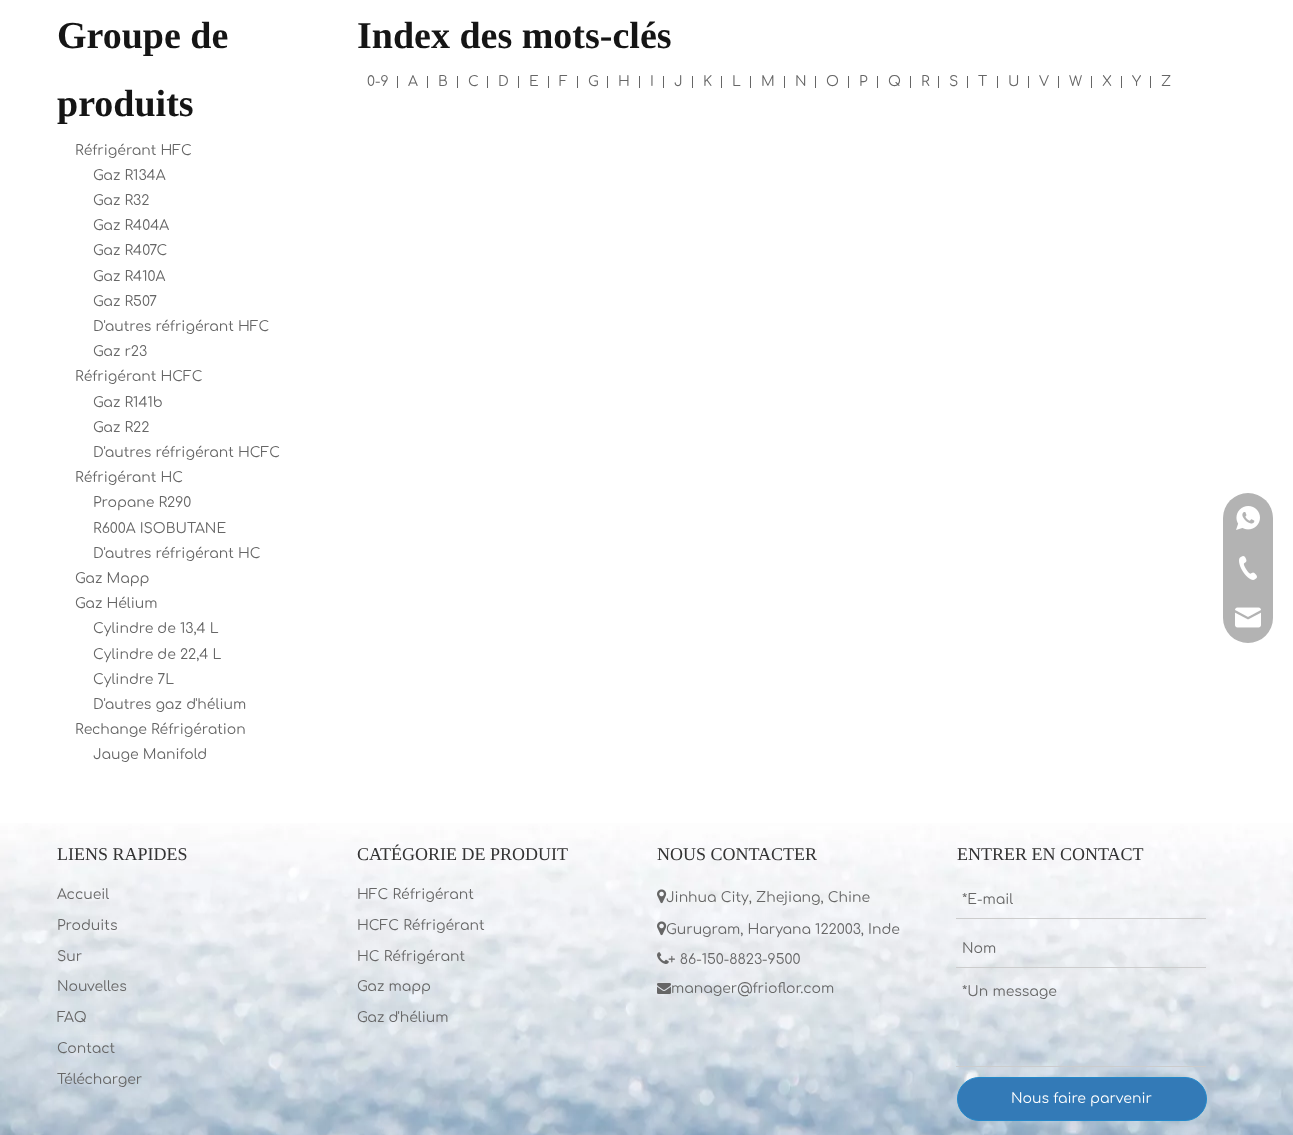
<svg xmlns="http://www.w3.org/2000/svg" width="1293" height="1135">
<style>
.a{font:bold 38px Liberation Serif;fill:#151515}
.b{font:14px Comfortaa;fill:#666}
.c{font:18px Liberation Serif;fill:#333}
.d{font:14px Comfortaa;fill:#fff}
</style>
<rect width="100%" height="100%" fill="#fff"/>
<path fill="#666" d="M397 76h1v12H397z"/>
<path fill="#666" d="M427 76h1v12H427z"/>
<path fill="#666" d="M457 76h1v12H457z"/>
<path fill="#666" d="M487 76h1v12H487z"/>
<path fill="#666" d="M518 76h1v12H518z"/>
<path fill="#666" d="M548 76h1v12H548z"/>
<path fill="#666" d="M577 76h1v12H577z"/>
<path fill="#666" d="M607 76h1v12H607z"/>
<path fill="#666" d="M639 76h1v12H639z"/>
<path fill="#666" d="M663 76h1v12H663z"/>
<path fill="#666" d="M692 76h1v12H692z"/>
<path fill="#666" d="M721 76h1v12H721z"/>
<path fill="#666" d="M750 76h1v12H750z"/>
<path fill="#666" d="M784 76h1v12H784z"/>
<path fill="#666" d="M815 76h1v12H815z"/>
<path fill="#666" d="M848 76h1v12H848z"/>
<path fill="#666" d="M877 76h1v12H877z"/>
<path fill="#666" d="M910 76h1v12H910z"/>
<path fill="#666" d="M938 76h1v12H938z"/>
<path fill="#666" d="M967 76h1v12H967z"/>
<path fill="#666" d="M997 76h1v12H997z"/>
<path fill="#666" d="M1028 76h1v12H1028z"/>
<path fill="#666" d="M1058 76h1v12H1058z"/>
<path fill="#666" d="M1091 76h1v12H1091z"/>
<path fill="#666" d="M1121 76h1v12H1121z"/>
<path fill="#666" d="M1150 76h1v12H1150z"/>
<rect fill="#b3b3b3" x="1223" y="493" width="50" height="150" rx="25"/>
<image href="1.png" x="1236" y="506" width="24" height="24"/>
<image href="2.png" x="1239" y="556" width="18" height="24"/>
<image href="3.png" x="1235" y="607" width="26" height="21"/>
<image href="4.png" x="0" y="823" width="1293" height="312"/>
<image href="5.png" x="657" y="889" width="10" height="15"/>
<image href="6.png" x="657" y="921" width="10" height="15"/>
<image href="7.png" x="657" y="952" width="12" height="12"/>
<image href="8.png" x="657" y="983" width="14" height="11"/>
<path fill="#ccc" d="M956 918h250v1H956z"/>
<path fill="#ccc" d="M956 967h250v1H956z"/>
<path fill="#ccc" d="M956 1066h250v1H956z"/>
<rect fill="#337ab7" stroke="#2289cb" x="957.5" y="1077.5" width="249" height="43" rx="21.5"/>
<text class="a" x="57" y="48">Groupe de</text>
<text class="a" x="57" y="116">produits</text>
<text class="b" x="75" y="155">Réfrigérant HFC</text>
<text class="b" x="93" y="180">Gaz R134A</text>
<text class="b" x="93" y="205">Gaz R32</text>
<text class="b" x="93" y="230">Gaz R404A</text>
<text class="b" x="93" y="255">Gaz R407C</text>
<text class="b" x="93" y="281">Gaz R410A</text>
<text class="b" x="93" y="306">Gaz R507</text>
<text class="b" x="93" y="331">D'autres réfrigérant HFC</text>
<text class="b" x="93" y="356">Gaz r23</text>
<text class="b" x="75" y="381">Réfrigérant HCFC</text>
<text class="b" x="93" y="407">Gaz R141b</text>
<text class="b" x="93" y="432">Gaz R22</text>
<text class="b" x="93" y="457">D'autres réfrigérant HCFC</text>
<text class="b" x="75" y="482">Réfrigérant HC</text>
<text class="b" x="93" y="507">Propane R290</text>
<text class="b" x="93" y="533">R600A ISOBUTANE</text>
<text class="b" x="93" y="558">D'autres réfrigérant HC</text>
<text class="b" x="75" y="583">Gaz Mapp</text>
<text class="b" x="75" y="608">Gaz Hélium</text>
<text class="b" x="93" y="633">Cylindre de 13,4 L</text>
<text class="b" x="93" y="659">Cylindre de 22,4 L</text>
<text class="b" x="93" y="684">Cylindre 7L</text>
<text class="b" x="93" y="709">D'autres gaz d'hélium</text>
<text class="b" x="75" y="734">Rechange Réfrigération</text>
<text class="b" x="93" y="759">Jauge Manifold</text>
<text class="a" x="357" y="48">Index des mots-clés</text>
<text class="b" x="367" y="86">0-9</text>
<text class="b" x="408" y="86">A</text>
<text class="b" x="438" y="86">B</text>
<text class="b" x="468" y="86">C</text>
<text class="b" x="498" y="86">D</text>
<text class="b" x="529" y="86">E</text>
<text class="b" x="559" y="86">F</text>
<text class="b" x="588" y="86">G</text>
<text class="b" x="618" y="86">H</text>
<text class="b" x="650" y="86">I</text>
<text class="b" x="674" y="86">J</text>
<text class="b" x="703" y="86">K</text>
<text class="b" x="732" y="86">L</text>
<text class="b" x="761" y="86">M</text>
<text class="b" x="795" y="86">N</text>
<text class="b" x="826" y="86">O</text>
<text class="b" x="859" y="86">P</text>
<text class="b" x="888" y="86">Q</text>
<text class="b" x="921" y="86">R</text>
<text class="b" x="949" y="86">S</text>
<text class="b" x="978" y="86">T</text>
<text class="b" x="1008" y="86">U</text>
<text class="b" x="1039" y="86">V</text>
<text class="b" x="1069" y="86">W</text>
<text class="b" x="1102" y="86">X</text>
<text class="b" x="1132" y="86">Y</text>
<text class="b" x="1161" y="86">Z</text>
<text class="c" x="57" y="860">LIENS RAPIDES</text>
<text class="b" x="57" y="899">Accueil</text>
<text class="b" x="57" y="930">Produits</text>
<text class="b" x="57" y="961">Sur</text>
<text class="b" x="57" y="991">Nouvelles</text>
<text class="b" x="57" y="1022">FAQ</text>
<text class="b" x="57" y="1053">Contact</text>
<text class="b" x="57" y="1084">Télécharger</text>
<text class="c" x="357" y="860">CATÉGORIE DE PRODUIT</text>
<text class="b" x="357" y="899">HFC Réfrigérant</text>
<text class="b" x="357" y="930">HCFC Réfrigérant</text>
<text class="b" x="357" y="961">HC Réfrigérant</text>
<text class="b" x="357" y="991">Gaz mapp</text>
<text class="b" x="357" y="1022">Gaz d'hélium</text>
<text class="c" x="657" y="860">NOUS CONTACTER</text>
<text class="b" x="666" y="902">Jinhua City, Zhejiang, Chine</text>
<text class="b" x="666" y="934">Gurugram, Haryana 122003, Inde</text>
<text class="b" x="668" y="964">+ 86-150-8823-9500</text>
<text class="b" x="671" y="993">manager@frioflor.com</text>
<text class="c" x="957" y="860">ENTRER EN CONTACT</text>
<text class="b" x="962" y="904">*E-mail</text>
<text class="b" x="962" y="953">Nom</text>
<text class="b" x="962" y="996">*Un message</text>
<text class="d" x="1011" y="1103">Nous faire parvenir</text>
</svg>
